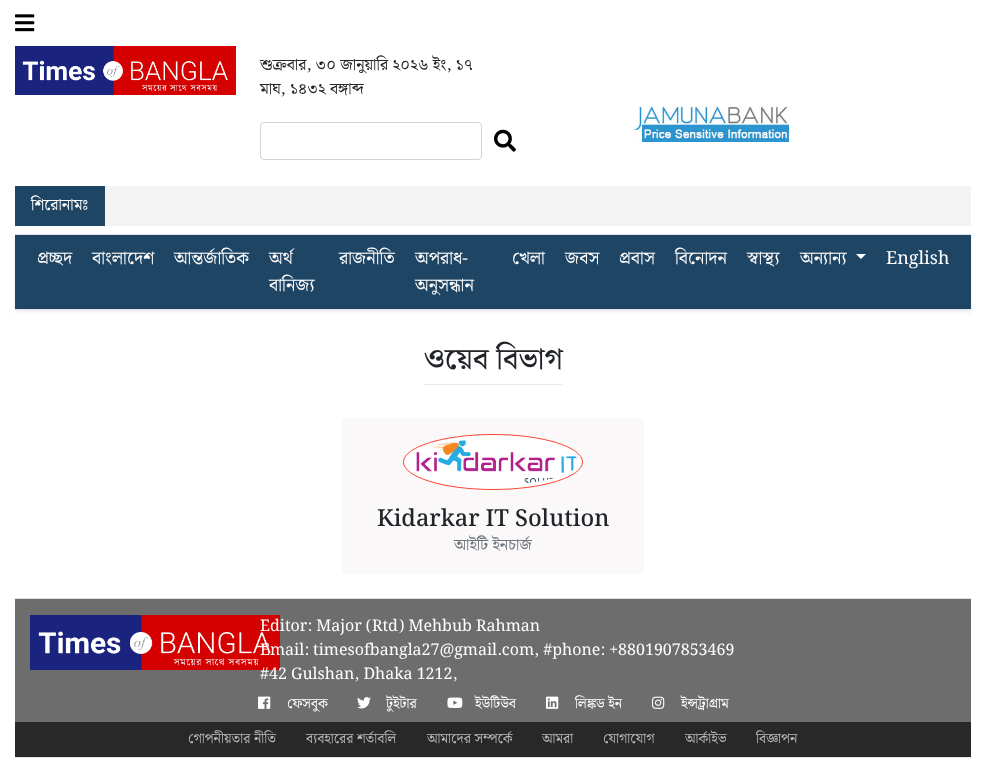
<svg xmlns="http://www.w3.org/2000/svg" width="986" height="776">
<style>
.a{font:16px Noto Serif Bengali;fill:#212529}
.b{font:16px Noto Serif Bengali;fill:#fff}
.c{font:18px Noto Serif Bengali;fill:#fff}
.d{font:500 30px Noto Serif Bengali;fill:#212529}
.e{font:500 23.4px Noto Serif Bengali;fill:#212529}
.f{font:16px Noto Serif Bengali;fill:#6c757d}
.g{font:14px Noto Serif Bengali;fill:#fff}
.h{font:14px Noto Serif Bengali;fill:#b8b8b8}
</style>
<rect width="100%" height="100%" fill="#fff"/>
<image href="1.png" x="15" y="14" width="20" height="18"/>
<image href="2.png" x="15" y="46" width="221" height="49"/>
<rect fill="none" stroke="#ced4da" x="260.5" y="122.5" width="221" height="37" rx="3.5"/>
<image href="3.png" x="494" y="129" width="22" height="23"/>
<image href="4.png" x="633" y="106" width="156" height="36"/>
<path fill="#f3f3f3" d="M105 186h866v40H105z"/>
<path fill="#1f4565" d="M15 186h90v40H15z"/>
<path fill="#00000012" filter="blur(2px)" d="M15 236h956v76H15z"/>
<path fill="#1f4565" d="M15 235h956v74H15z"/>
<path fill="#dee2e6" d="M15 234h956v1H15z"/>
<path fill="#dee2e6" d="M15 309h956v1H15z"/>
<path fill="#fff" d="M856 254h10l-5 5z"/>
<path fill="#eeeaea" d="M424 384h138v1H424z"/>
<rect fill="#faf8f8" x="342" y="418" width="302" height="156" rx="4"/>
<ellipse fill="#fff" cx="493" cy="462" rx="90" ry="28"/>
<path fill="none" stroke="#f43" d="M493 434.5c49.5 0 89.5 12.5 89.5 27.5c0 15-40 27.5-89.5 27.5c-49.5 0-89.5-12.5-89.5-27.5c0-15 40-27.5 89.5-27.5z"/>
<image href="5.png" x="416" y="440" width="161" height="43"/>
<path fill="#6d6d6d" d="M15 599h956v123H15z"/>
<path fill="#dee2e6" d="M15 598h956v1H15z"/>
<path fill="#dee2e6" d="M15 757h956v1H15z"/>
<image href="6.png" x="30" y="615" width="250" height="55"/>
<image href="7.png" x="258" y="696" width="13" height="13"/>
<image href="8.png" x="357" y="697" width="14" height="12"/>
<image href="9.png" x="447" y="697" width="16" height="11"/>
<image href="10.png" x="546" y="696" width="13" height="13"/>
<image href="11.png" x="652" y="696" width="13" height="13"/>
<path fill="#282828" d="M15 722h956v35H15z"/>
<text class="a" x="260" y="70">শুক্রবার, ৩০ জানুয়ারি ২০২৬ ইং, ১৭</text>
<text class="a" x="260" y="94">মাঘ, ১৪৩২ বঙ্গাব্দ</text>
<text class="b" x="31" y="210">শিরোনামঃ</text>
<text class="c" x="37" y="264">প্রচ্ছদ</text>
<text class="c" x="92" y="264">বাংলাদেশ</text>
<text class="c" x="174" y="264">আন্তর্জাতিক</text>
<text class="c" x="269" y="264">অর্থ</text>
<text class="c" x="269" y="291">বানিজ্য</text>
<text class="c" x="339" y="264">রাজনীতি</text>
<text class="c" x="415" y="264">অপরাধ-</text>
<text class="c" x="415" y="291">অনুসন্ধান</text>
<text class="c" x="512" y="264">খেলা</text>
<text class="c" x="565" y="264">জবস</text>
<text class="c" x="619" y="264">প্রবাস</text>
<text class="c" x="675" y="264">বিনোদন</text>
<text class="c" x="747" y="264">স্বাস্থ্য</text>
<text class="c" x="800" y="264">অন্যান্য</text>
<text class="c" x="886" y="264">English</text>
<text class="d" x="424" y="369">ওয়েব বিভাগ</text>
<text class="e" x="377" y="526">Kidarkar IT Solution</text>
<text class="f" x="454" y="550">আইটি ইনচার্জ</text>
<text class="b" x="260" y="631">Editor: Major (Rtd) Mehbub Rahman</text>
<text class="b" x="260" y="655">Email: timesofbangla27@gmail.com, #phone: +8801907853469</text>
<text class="b" x="260" y="679">#42 Gulshan, Dhaka 1212,</text>
<text class="g" x="287" y="708">ফেসবুক</text>
<text class="g" x="386" y="708">টুইটার</text>
<text class="g" x="475" y="708">ইউটিউব</text>
<text class="g" x="575" y="708">লিঙ্কড ইন</text>
<text class="g" x="681" y="708">ইন্সট্রাগ্রাম</text>
<text class="h" x="188" y="743">গোপনীয়তার নীতি</text>
<text class="h" x="306" y="743">ব্যবহারের শর্তাবলি</text>
<text class="h" x="427" y="743">আমাদের সম্পর্কে</text>
<text class="h" x="542" y="743">আমরা</text>
<text class="h" x="603" y="743">যোগাযোগ</text>
<text class="h" x="685" y="743">আর্কাইভ</text>
<text class="h" x="756" y="743">বিজ্ঞাপন</text>
</svg>
